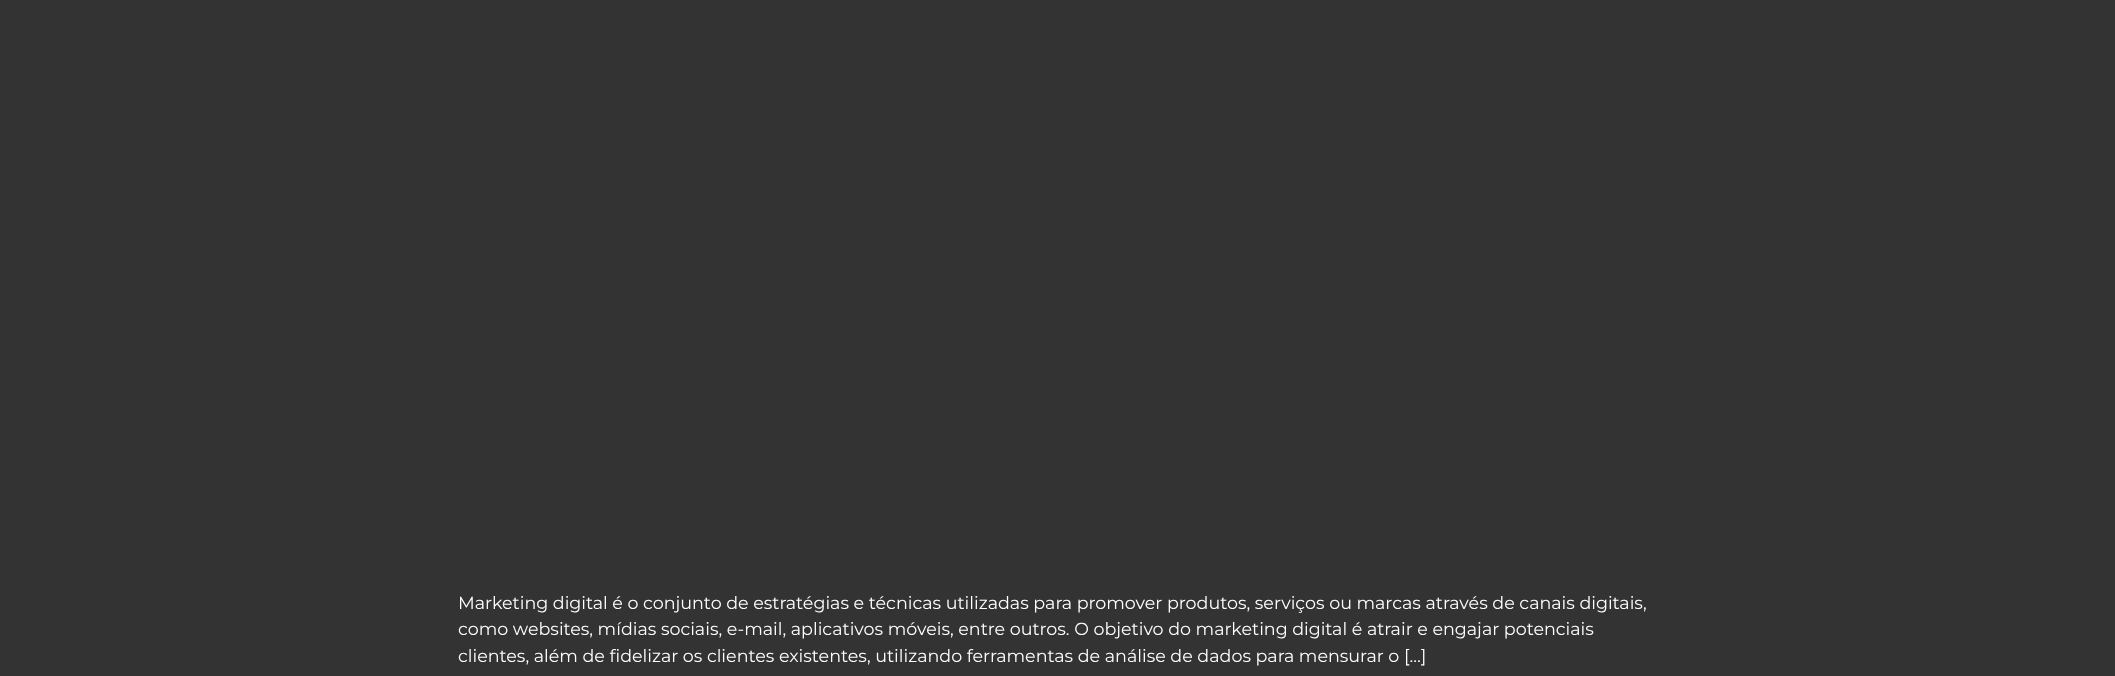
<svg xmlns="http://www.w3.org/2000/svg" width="2115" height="676">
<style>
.a{font:17.5px Montserrat;fill:#fff}
</style>
<rect width="100%" height="100%" fill="#333"/>
<text class="a" x="458" y="609">Marketing digital é o conjunto de estratégias e técnicas utilizadas para promover produtos, serviços ou marcas através de canais digitais,</text>
<text class="a" x="458" y="635">como websites, mídias sociais, e-mail, aplicativos móveis, entre outros. O objetivo do marketing digital é atrair e engajar potenciais</text>
<text class="a" x="458" y="662">clientes, além de fidelizar os clientes existentes, utilizando ferramentas de análise de dados para mensurar o […]</text>
</svg>
